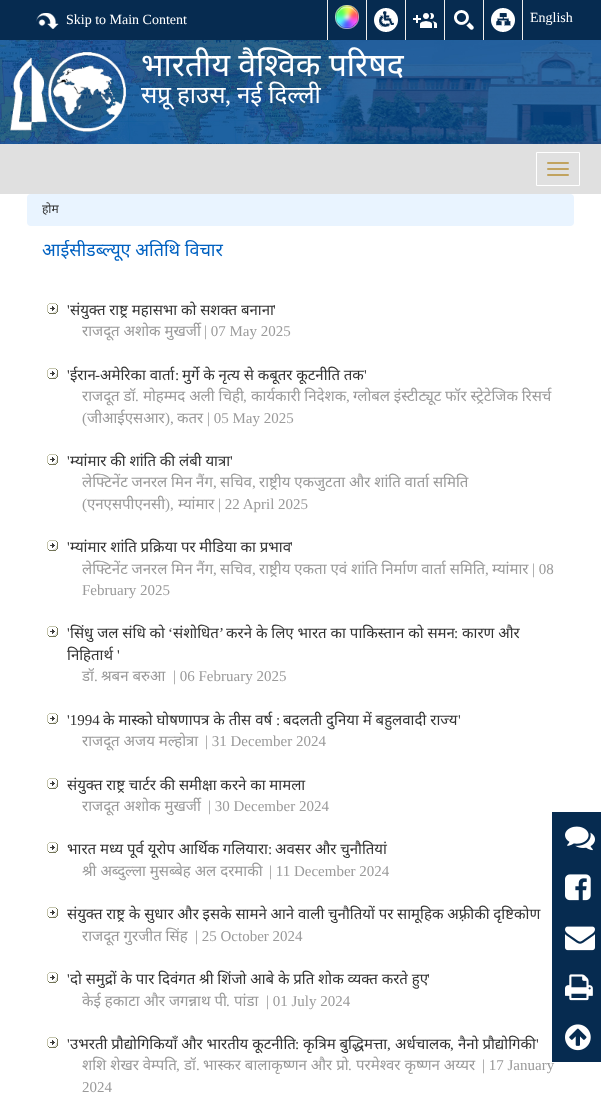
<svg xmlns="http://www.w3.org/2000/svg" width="601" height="1095">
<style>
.a{font:14px Liberation Serif;fill:#fff}
.b{font:32px Noto Sans;fill:#fff}
.c{font:24px Noto Sans;fill:#fff}
.d{font:24px Liberation Serif;fill:#fff}
.e{font:12px Noto Sans;fill:#333}
.f{font:18px Noto Sans;fill:#0061c1}
.g{font:15px Liberation Serif;fill:#333}
.h{font:15px Noto Sans;fill:#333}
.i{font:15px Noto Sans;fill:#9a9a9a}
.j{font:15px Liberation Serif;fill:#9a9a9a}
</style>
<rect width="100%" height="100%" fill="#fff"/>
<path fill="#062b50" d="M0 0h601v40H0z"/>
<image href="1.png" x="36" y="13" width="23" height="16"/>
<path fill="#eee" d="M327 0h1v40H327z"/>
<image href="2.png" x="335" y="5" width="24" height="24"/>
<path fill="#eee" d="M366 0h1v40H366z"/>
<image href="3.png" x="374" y="8" width="24" height="24"/>
<path fill="#eee" d="M405 0h1v40H405z"/>
<image href="4.png" x="413" y="13" width="24" height="15"/>
<path fill="#eee" d="M444 0h1v40H444z"/>
<image href="5.png" x="454" y="10" width="20" height="20"/>
<path fill="#eee" d="M483 0h1v40H483z"/>
<image href="6.png" x="491" y="8" width="24" height="24"/>
<path fill="#eee" d="M522 0h1v40H522z"/>
<image href="7.png" x="0" y="40" width="601" height="104"/>
<image href="8.png" x="10" y="52" width="116" height="80"/>
<path fill="#e0e0e0" d="M0 144h601v50H0z"/>
<path fill="none" stroke="#fff" d="M536.5 152.5h43v33H536.5z"/>
<rect fill="#c1a35f" x="547" y="162" width="22" height="2" rx="1"/>
<rect fill="#c1a35f" x="547" y="168" width="22" height="2" rx="1"/>
<rect fill="#c1a35f" x="547" y="174" width="22" height="2" rx="1"/>
<rect fill="#e9f4ff" x="27" y="194" width="547" height="32" rx="4"/>
<image href="9.png" x="47" y="303" width="11" height="11"/>
<image href="9.png" x="47" y="368" width="11" height="11"/>
<image href="9.png" x="47" y="454" width="11" height="11"/>
<image href="9.png" x="47" y="540" width="11" height="11"/>
<image href="9.png" x="47" y="626" width="11" height="11"/>
<image href="9.png" x="47" y="713" width="11" height="11"/>
<image href="9.png" x="47" y="778" width="11" height="11"/>
<image href="9.png" x="47" y="842" width="11" height="11"/>
<image href="9.png" x="47" y="907" width="11" height="11"/>
<image href="9.png" x="47" y="972" width="11" height="11"/>
<image href="9.png" x="47" y="1037" width="11" height="11"/>
<text class="a" x="66" y="24">Skip to Main Content</text>
<text class="a" x="530" y="22">English</text>
<text class="b" x="141" y="76">भारतीय वैश्विक परिषद</text>
<text class="c" x="141" y="103">सप्रू हाउस</text>
<text class="d" x="225" y="103">,</text>
<text class="c" x="237" y="103">नई दिल्ली</text>
<text class="e" x="42" y="213">होम</text>
<text class="f" x="42" y="256">आईसीडब्ल्यूए अतिथि विचार</text>
<text class="g" x="67" y="315">'</text>
<text class="h" x="70" y="315" word-spacing="-0.1">संयुक्त राष्ट्र महासभा को सशक्त बनाना</text>
<text class="g" x="273" y="315">'</text>
<text class="i" x="82" y="336">राजदूत अशोक मुखर्जी</text>
<text class="j" x="204" y="336">| 07 May 2025</text>
<text class="h" x="100" y="380" word-spacing="-0.1">अमेरिका वार्ता</text>
<text class="g" x="67" y="380">'</text>
<text class="h" x="70" y="380">ईरान</text>
<text class="g" x="95" y="380">-</text>
<text class="g" x="175" y="380">:</text>
<text class="h" x="182" y="380" word-spacing="-0.1">मुर्गे के नृत्य से कबूतर कूटनीति तक</text>
<text class="g" x="364" y="380">'</text>
<text class="i" x="82" y="401">राजदूत डॉ</text>
<text class="j" x="135" y="401">.</text>
<text class="i" x="143" y="401">मोहम्मद अली चिही</text>
<text class="j" x="243" y="401">,</text>
<text class="i" x="251" y="401" word-spacing="-0.1">कार्यकारी निदेशक</text>
<text class="j" x="346" y="401">,</text>
<text class="i" x="353" y="401" word-spacing="-0.1">ग्लोबल इंस्टीट्यूट फॉर स्ट्रेटेजिक रिसर्च</text>
<text class="j" x="82" y="423">(</text>
<text class="i" x="87" y="423">जीआईएसआर</text>
<text class="j" x="165" y="423">),</text>
<text class="i" x="177" y="423">कतर</text>
<text class="j" x="207" y="423">| 05 May 2025</text>
<text class="g" x="67" y="466">'</text>
<text class="h" x="70" y="466" word-spacing="-0.1">म्यांमार की शांति की लंबी यात्रा</text>
<text class="g" x="230" y="466">'</text>
<text class="i" x="82" y="487" word-spacing="-0.1">लेफ्टिनेंट जनरल मिन नैंग</text>
<text class="j" x="213" y="487">,</text>
<text class="i" x="220" y="487">सचिव</text>
<text class="j" x="252" y="487">,</text>
<text class="i" x="259" y="487" word-spacing="-0.1">राष्ट्रीय एकजुटता और शांति वार्ता समिति</text>
<text class="j" x="82" y="509">(</text>
<text class="i" x="87" y="509">एनएसपीएनसी</text>
<text class="j" x="165" y="509">),</text>
<text class="i" x="178" y="509">म्यांमार</text>
<text class="j" x="218" y="509">| 22 April 2025</text>
<text class="g" x="67" y="552">'</text>
<text class="h" x="70" y="552" word-spacing="-0.1">म्यांमार शांति प्रक्रिया पर मीडिया का प्रभाव</text>
<text class="g" x="290" y="552">'</text>
<text class="i" x="82" y="574">लेफ्टिनेंट जनरल मिन नैंग</text>
<text class="j" x="213" y="574">,</text>
<text class="i" x="220" y="574">सचिव</text>
<text class="j" x="252" y="574">,</text>
<text class="i" x="259" y="574">राष्ट्रीय एकता एवं शांति निर्माण वार्ता समिति</text>
<text class="j" x="485" y="574">,</text>
<text class="i" x="492" y="574">म्यांमार</text>
<text class="j" x="532" y="574">| 08</text>
<text class="j" x="82" y="595">February 2025</text>
<text class="g" x="67" y="638">'</text>
<text class="h" x="70" y="638">सिंधु जल संधि को</text>
<text class="h" x="226" y="638">करने के लिए भारत का पाकिस्तान को समन</text>
<text class="h" x="462" y="638" word-spacing="-0.1">कारण और</text>
<text class="g" x="168" y="638">‘</text>
<text class="h" x="173" y="638">संशोधित</text>
<text class="g" x="219" y="638">’</text>
<text class="g" x="454" y="638">:</text>
<text class="h" x="67" y="660">निहितार्थ</text>
<text class="g" x="117" y="660">'</text>
<text class="i" x="82" y="681">डॉ</text>
<text class="j" x="94" y="681">.</text>
<text class="i" x="101" y="681">श्रबन बरुआ</text>
<text class="j" x="173" y="681">| 06 February 2025</text>
<text class="g" x="67" y="725">'1994</text>
<text class="h" x="103" y="725">के मास्को घोषणापत्र के तीस वर्ष</text>
<text class="h" x="283" y="725">बदलती दुनिया में बहुलवादी राज्य</text>
<text class="g" x="458" y="725">'</text>
<text class="g" x="276" y="725">:</text>
<text class="i" x="82" y="746">राजदूत अजय मल्होत्रा</text>
<text class="j" x="205" y="746">| 31 December 2024</text>
<text class="h" x="67" y="790" word-spacing="-0.1">संयुक्त राष्ट्र चार्टर की समीक्षा करने का मामला</text>
<text class="i" x="82" y="811">राजदूत अशोक मुखर्जी</text>
<text class="j" x="208" y="811">| 30 December 2024</text>
<text class="h" x="67" y="854" word-spacing="-0.1">भारत मध्य पूर्व यूरोप आर्थिक गलियारा</text>
<text class="g" x="268" y="854">:</text>
<text class="h" x="275" y="854" word-spacing="-0.1">अवसर और चुनौतियां</text>
<text class="i" x="82" y="876">श्री अब्दुल्ला मुसब्बेह अल दरमाकी</text>
<text class="j" x="269" y="876">| 11 December 2024</text>
<text class="h" x="67" y="919" word-spacing="-0.1">संयुक्त राष्ट्र के सुधार और इसके सामने आने वाली चुनौतियों पर सामूहिक अफ़्रीकी दृष्टिकोण</text>
<text class="i" x="82" y="941">राजदूत गुरजीत सिंह</text>
<text class="j" x="195" y="941">| 25 October 2024</text>
<text class="g" x="67" y="984">'</text>
<text class="h" x="70" y="984" word-spacing="-0.1">दो समुद्रों के पार दिवंगत श्री शिंजो आबे के प्रति शोक व्यक्त करते हुए</text>
<text class="g" x="427" y="984">'</text>
<text class="i" x="82" y="1006">केई हकाटा और जगन्नाथ पी</text>
<text class="j" x="226" y="1006">.</text>
<text class="i" x="234" y="1006">पांडा</text>
<text class="j" x="266" y="1006">| 01 July 2024</text>
<text class="g" x="67" y="1049">'</text>
<text class="h" x="70" y="1049">उभरती प्रौद्योगिकियाँ और भारतीय कूटनीति</text>
<text class="h" x="395" y="1049">अर्धचालक</text>
<text class="g" x="536" y="1049">'</text>
<text class="g" x="295" y="1049">:</text>
<text class="h" x="303" y="1049">कृत्रिम बुद्धिमत्ता</text>
<text class="g" x="387" y="1049">,</text>
<text class="g" x="450" y="1049">,</text>
<text class="h" x="458" y="1049">नैनो प्रौद्योगिकी</text>
<text class="i" x="82" y="1070">शशि शेखर वेम्पति</text>
<text class="j" x="176" y="1070">,</text>
<text class="i" x="184" y="1070">डॉ</text>
<text class="j" x="196" y="1070">.</text>
<text class="i" x="203" y="1070">भास्कर बालाकृष्णन और प्रो</text>
<text class="j" x="348" y="1070">.</text>
<text class="i" x="356" y="1070">परमेश्वर कृष्णन अय्यर</text>
<text class="j" x="482" y="1070">| 17 January</text>
<text class="j" x="82" y="1092">2024</text>
<path fill="#062b50" d="M552 812h49v250H552z"/>
<image href="10.png" x="565" y="826" width="30" height="25"/>
<image href="11.png" x="565" y="874" width="26" height="27"/>
<image href="12.png" x="565" y="926" width="30" height="25"/>
<image href="13.png" x="565" y="974" width="28" height="27"/>
<image href="14.png" x="565" y="1024" width="26" height="27"/>
</svg>
